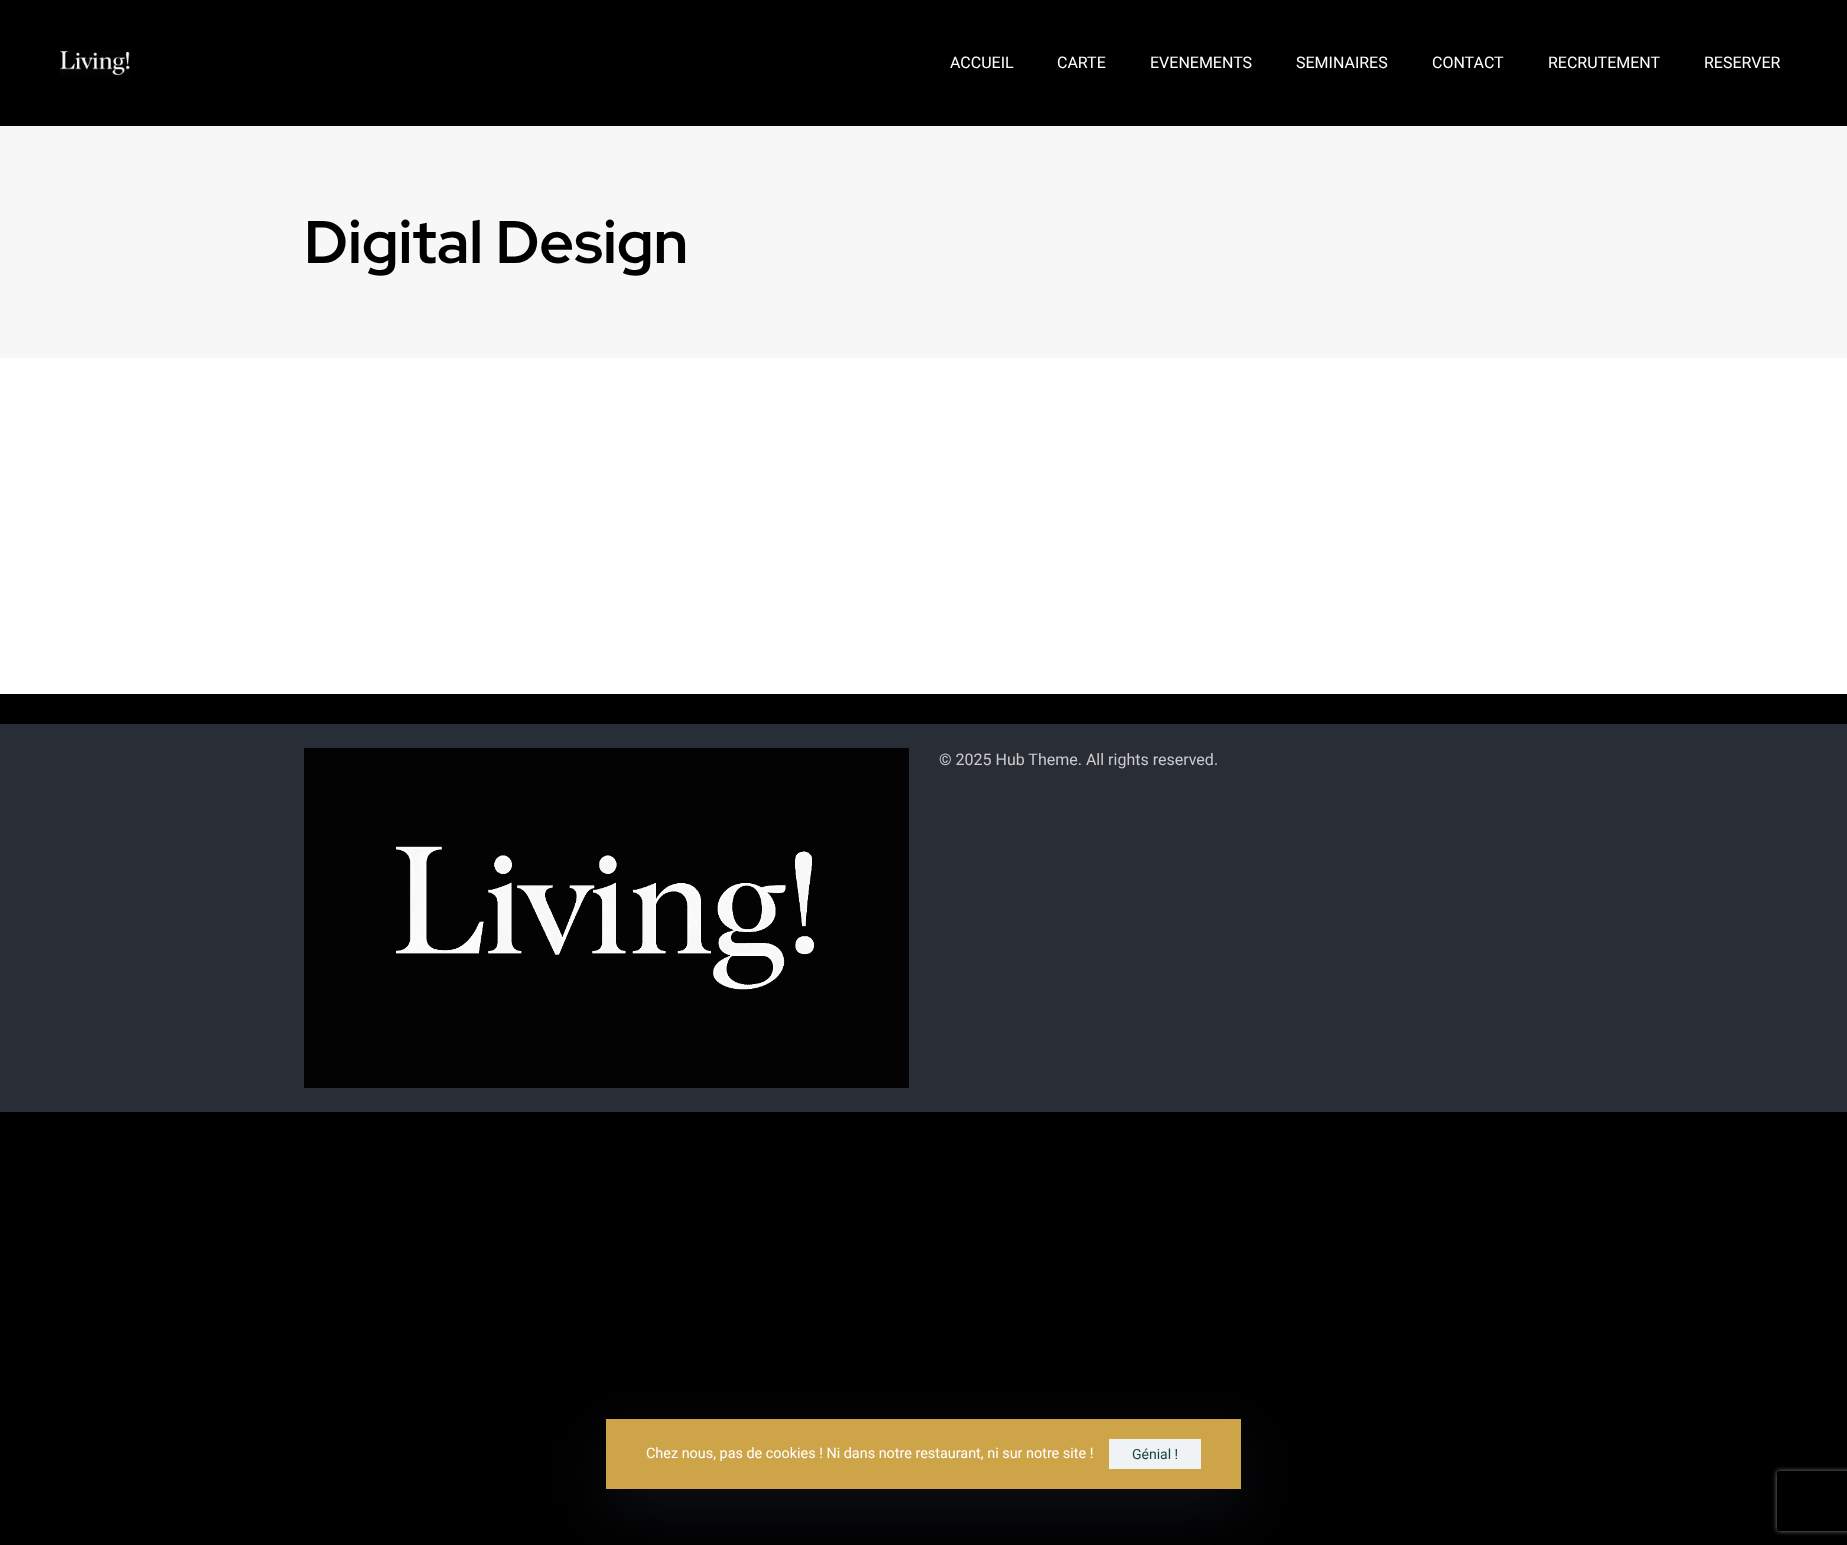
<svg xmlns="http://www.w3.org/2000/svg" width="1847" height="1545">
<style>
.a{font:16px Roboto;fill:#fff}
.b{font:bold 60px Red Hat Display;fill:#000}
.c{font:16px Roboto;fill:#cbcbcb}
.d{font:14.4px Roboto;fill:#fff}
.e{font:14px Roboto;fill:#184341}
</style>
<defs>
<clipPath id="clip1"><path d="M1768 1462h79v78h-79zm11 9h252c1 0 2 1 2 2v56c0 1-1 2-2 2h-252c-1 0-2-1-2-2v-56c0-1 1-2 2-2z" clip-rule="evenodd"/></clipPath>
</defs>
<rect width="100%" height="100%" fill="#000"/>
<path fill="#f7f7f7" d="M0 126h1847v232H0z"/>
<image href="1.png" x="60" y="50" width="70" height="26"/>
<path fill="#fff" d="M0 358h1847v336H0z"/>
<path fill="#292d36" d="M0 724h1847v388H0z"/>
<image href="2.png" x="304" y="748" width="605" height="340"/>
<path fill="#5c6b9526" filter="blur(30px)" d="M606 1439h635v70H606z"/>
<path fill="#cda548" d="M606 1419h635v70H606z"/>
<path fill="#eff3f5" d="M1109 1439h92v30H1109z"/>
<g clip-path="url(#clip1)">
<rect fill="#808080" filter="blur(2.5px)" x="1777" y="1471" width="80" height="60" rx="2"/>
</g>
<text class="a" x="950" y="68">ACCUEIL</text>
<text class="a" x="1057" y="68">CARTE</text>
<text class="a" x="1150" y="68">EVENEMENTS</text>
<text class="a" x="1296" y="68">SEMINAIRES</text>
<text class="a" x="1432" y="68">CONTACT</text>
<text class="a" x="1548" y="68">RECRUTEMENT</text>
<text class="a" x="1704" y="68">RESERVER</text>
<text class="b" x="304" y="263">Digital Design</text>
<text class="c" x="939" y="765">© 2025 Hub Theme. All rights reserved.</text>
<text class="d" x="646" y="1458">Chez nous, pas de cookies ! Ni dans notre restaurant, ni sur notre site !</text>
<text class="e" x="1132" y="1459">Génial !</text>
</svg>
